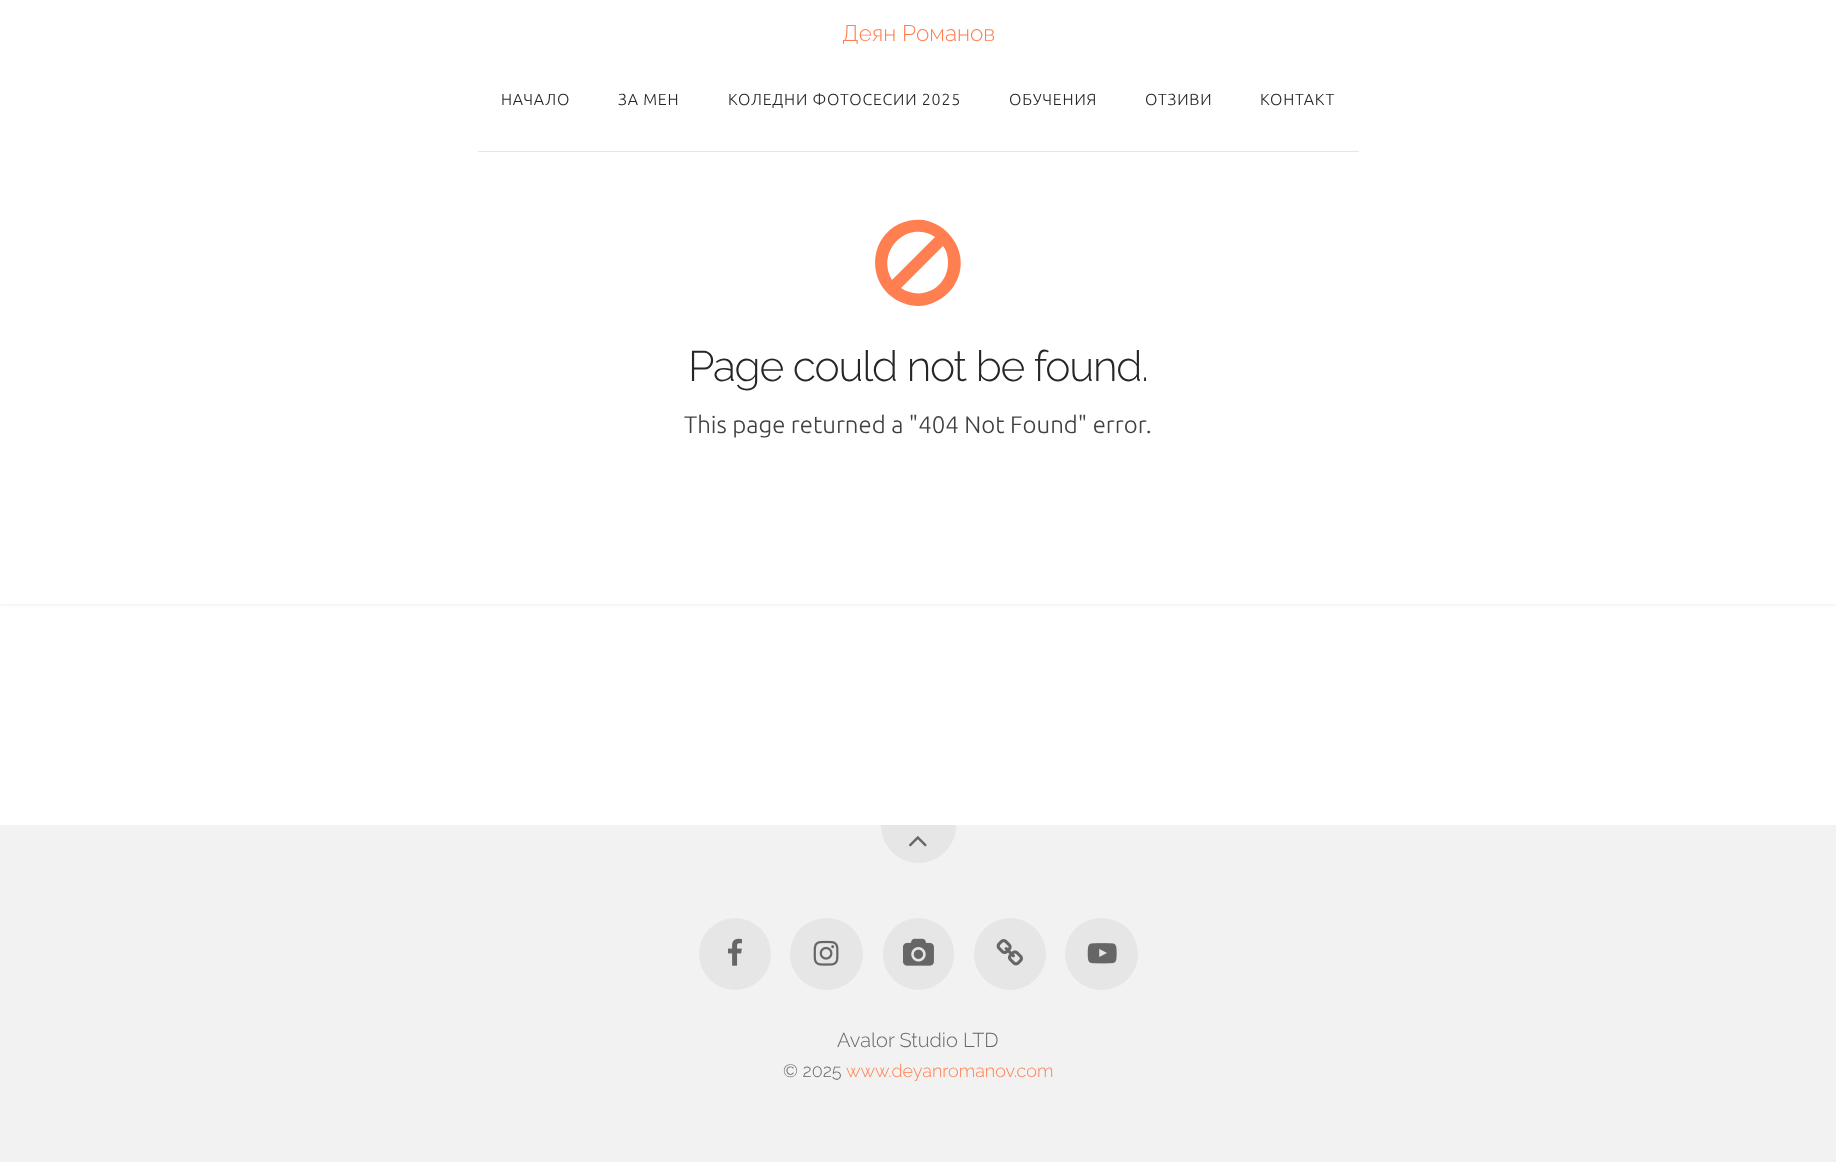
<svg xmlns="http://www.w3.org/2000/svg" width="1836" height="1162">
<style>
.a{font:100 22.5px Raleway;fill:#ff7f50}
.b{font:300 16px Ubuntu;letter-spacing:0.8px;fill:#262626}
.c{font:100 42.5px Raleway;letter-spacing:-1.2px;fill:#262626}
.d{font:300 24px Ubuntu;fill:#404040}
.e{font:100 20px Raleway;fill:#666}
.f{font:100 18px Raleway;fill:#666}
.g{font:100 18px Raleway;fill:#ff7f50}
</style>
<rect width="100%" height="100%" fill="#fff"/>
<path fill="#0000001a" filter="blur(2px)" d="M0 0h1836v604H0z"/>
<path fill="#fff" d="M0 0h1836v604H0z"/>
<path fill="#e6e6e6" d="M478 151h881v1H478z"/>
<path fill="#ff7f50" d="M948 263c0-6-1-12-5-17l-42 42c21 14 47-1 47-25zm-56 17l43-43c-28-18-60 15-43 43zm65-34c10 22-1 47-22 56c-10 5-22 5-32 1c-35-13-38-62-4-79c8-4 17-5 25-4c15 3 27 13 33 26z"/>
<path fill="#f2f2f2" d="M0 825h1836v337H0z"/>
<path fill="#e6e6e6" d="M881 825h75v.5c0 20.5-17 37.5-37.5 37.5c-20.5 0-37.5-17-37.5-37.5z"/>
<image href="1.png" x="909" y="836" width="18" height="11"/>
<circle fill="#e6e6e6" cx="735" cy="954" r="36"/>
<image href="2.png" x="728" y="938" width="14" height="28"/>
<rect fill="#e6e6e6" x="790" y="918" width="73" height="72" rx="36"/>
<image href="3.png" x="813" y="940" width="26" height="26"/>
<rect fill="#e6e6e6" x="883" y="918" width="71" height="72" rx="35.5"/>
<image href="4.png" x="903" y="938" width="31" height="28"/>
<circle fill="#e6e6e6" cx="1010" cy="954" r="36"/>
<image href="5.png" x="996" y="939" width="27" height="27"/>
<rect fill="#e6e6e6" x="1065" y="918" width="73" height="72" rx="36"/>
<image href="6.png" x="1087" y="943" width="30" height="21"/>
<text class="a" x="842" y="41">Деян Романов</text>
<text class="b" x="501" y="105">НАЧАЛО</text>
<text class="b" x="618" y="105">ЗА МЕН</text>
<text class="b" x="728" y="105">КОЛЕДНИ ФОТОСЕСИИ 2025</text>
<text class="b" x="1009" y="105">ОБУЧЕНИЯ</text>
<text class="b" x="1145" y="105">ОТЗИВИ</text>
<text class="b" x="1260" y="105">КОНТАКТ</text>
<text class="c" x="688" y="381">Page could not be found.</text>
<text class="d" x="684" y="433">This page returned a "404 Not Found" error.</text>
<text class="e" x="837" y="1047">Avalor Studio LTD</text>
<text class="f" x="783" y="1077">© 2025</text>
<text class="g" x="846" y="1077">www.deyanromanov.com</text>
</svg>
